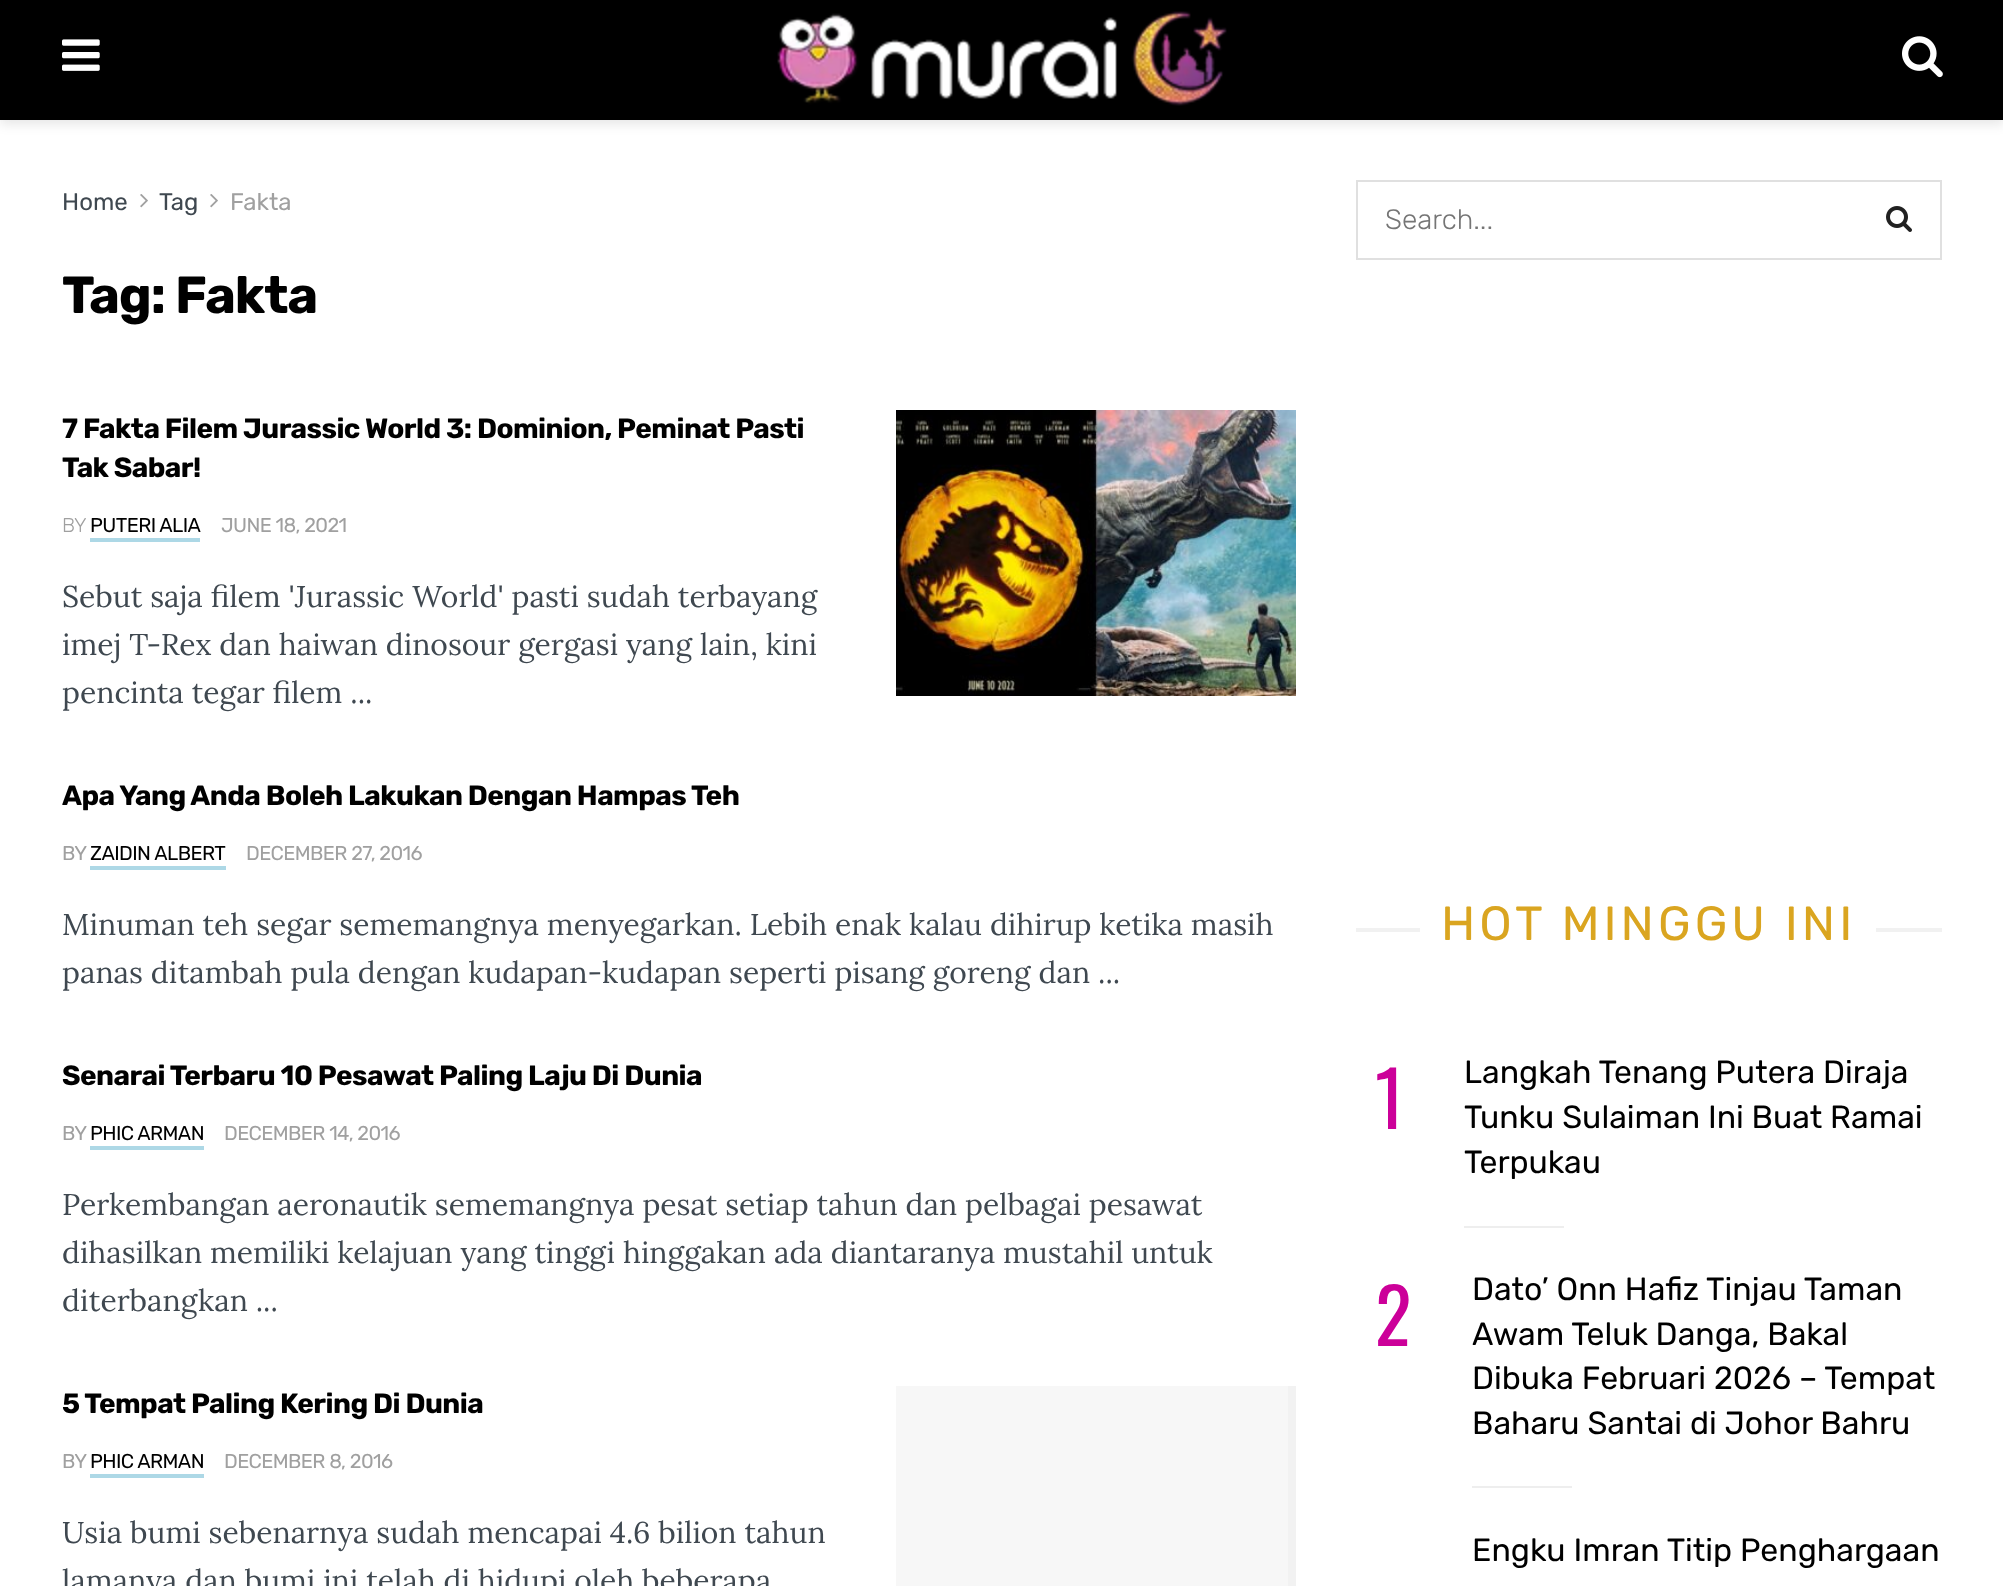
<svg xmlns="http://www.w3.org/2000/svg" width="2003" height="1586">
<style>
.a{font:24px Rubik;fill:#3f4850}
.b{font:24px Rubik;fill:#a0a0a0}
.c{font:bold 52px Rubik;letter-spacing:-1px;fill:#000}
.d{font:bold 28px Rubik;letter-spacing:-0.55px;fill:#000}
.e{font:300 20px Rubik;letter-spacing:-0.6px;fill:#a0a0a0}
.f{font:20px Rubik;letter-spacing:-0.6px;fill:#000}
.g{font:20px Rubik;letter-spacing:-0.6px;fill:#a0a0a0}
.h{font:30px Lora;fill:#3f4850}
.i{font:300 28px Rubik;fill:#757575}
.j{font:48px Rubik;letter-spacing:4px;fill:#daa520}
.k{font:76px Oswald;fill:#c09}
.l{font:32px Rubik;fill:#000}
</style>
<rect width="100%" height="100%" fill="#fff"/>
<path fill="#0000001a" filter="blur(6px)" d="M0 4h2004v120H0z"/>
<path fill="#000" d="M0 0h2003v120H0z"/>
<image href="1.png" x="62" y="39" width="38" height="32"/>
<image href="2.png" x="777" y="11" width="450" height="95"/>
<image href="3.png" x="1902" y="36" width="41" height="42"/>
<image href="4.png" x="140" y="194" width="8" height="14"/>
<image href="4.png" x="210" y="194" width="8" height="14"/>
<path fill="#add8e6" d="M90 538h110v4H90z"/>
<image href="5.png" x="896" y="410" width="400" height="286"/>
<path fill="#add8e6" d="M90 866h136v4H90z"/>
<path fill="#add8e6" d="M90 1146h114v4H90z"/>
<path fill="#add8e6" d="M90 1474h114v4H90z"/>
<path fill="#f7f7f7" d="M896 1386h392v200H896z"/>
<path fill="#f2f2f2" d="M1288 1386h8v200H1288z"/>
<path fill="none" stroke="#e0e0e0" stroke-width="2" d="M1357 181h584v78H1357z"/>
<image href="6.png" x="1886" y="206" width="26" height="26"/>
<path fill="#f1f1f1" d="M1356 928h586v4H1356z"/>
<path fill="#fff" d="M1420 928h456v4H1420z"/>
<path fill="#eee" d="M1464 1226h100v2H1464z"/>
<path fill="#eee" d="M1472 1486h100v2H1472z"/>
<text class="a" x="62" y="210">Home</text>
<text class="a" x="159" y="210">Tag</text>
<text class="b" x="230" y="210">Fakta</text>
<text class="c" x="62" y="313">Tag: Fakta</text>
<text class="d" x="62" y="438">7 Fakta Filem Jurassic World 3: Dominion, Peminat Pasti</text>
<text class="d" x="62" y="477">Tak Sabar!</text>
<text class="e" x="62" y="532">BY</text>
<text class="f" x="90" y="532">PUTERI ALIA</text>
<text class="g" x="221" y="532">JUNE 18, 2021</text>
<text class="h" x="62" y="607">Sebut saja filem 'Jurassic World' pasti sudah terbayang</text>
<text class="h" x="62" y="655">imej T-Rex dan haiwan dinosour gergasi yang lain, kini</text>
<text class="h" x="62" y="703">pencinta tegar filem ...</text>
<text class="d" x="62" y="805">Apa Yang Anda Boleh Lakukan Dengan Hampas Teh</text>
<text class="g" x="62" y="860">BY</text>
<text class="f" x="90" y="860">ZAIDIN ALBERT</text>
<text class="g" x="246" y="860">DECEMBER 27, 2016</text>
<text class="h" x="62" y="935">Minuman teh segar sememangnya menyegarkan. Lebih enak kalau dihirup ketika masih</text>
<text class="h" x="62" y="983">panas ditambah pula dengan kudapan-kudapan seperti pisang goreng dan ...</text>
<text class="d" x="62" y="1085">Senarai Terbaru 10 Pesawat Paling Laju Di Dunia</text>
<text class="g" x="62" y="1140">BY</text>
<text class="f" x="90" y="1140">PHIC ARMAN</text>
<text class="g" x="224" y="1140">DECEMBER 14, 2016</text>
<text class="h" x="62" y="1215">Perkembangan aeronautik sememangnya pesat setiap tahun dan pelbagai pesawat</text>
<text class="h" x="62" y="1263">dihasilkan memiliki kelajuan yang tinggi hinggakan ada diantaranya mustahil untuk</text>
<text class="h" x="62" y="1311">diterbangkan ...</text>
<text class="d" x="62" y="1413">5 Tempat Paling Kering Di Dunia</text>
<text class="g" x="62" y="1468">BY</text>
<text class="f" x="90" y="1468">PHIC ARMAN</text>
<text class="g" x="224" y="1468">DECEMBER 8, 2016</text>
<text class="h" x="62" y="1543">Usia bumi sebenarnya sudah mencapai 4.6 bilion tahun</text>
<text class="h" x="62" y="1591">lamanya dan bumi ini telah di hidupi oleh beberapa</text>
<text class="i" x="1385" y="229">Search...</text>
<text class="j" x="1441" y="940">HOT MINGGU INI</text>
<text class="k" x="1375" y="1129">1</text>
<text class="l" x="1464" y="1083">Langkah Tenang Putera Diraja</text>
<text class="l" x="1464" y="1128">Tunku Sulaiman Ini Buat Ramai</text>
<text class="l" x="1464" y="1173">Terpukau</text>
<text class="k" x="1375" y="1346">2</text>
<text class="l" x="1472" y="1300">Dato’ Onn Hafiz Tinjau Taman</text>
<text class="l" x="1472" y="1345">Awam Teluk Danga, Bakal</text>
<text class="l" x="1472" y="1389">Dibuka Februari 2026 – Tempat</text>
<text class="l" x="1472" y="1434">Baharu Santai di Johor Bahru</text>
<text class="l" x="1472" y="1561">Engku Imran Titip Penghargaan</text>
</svg>
